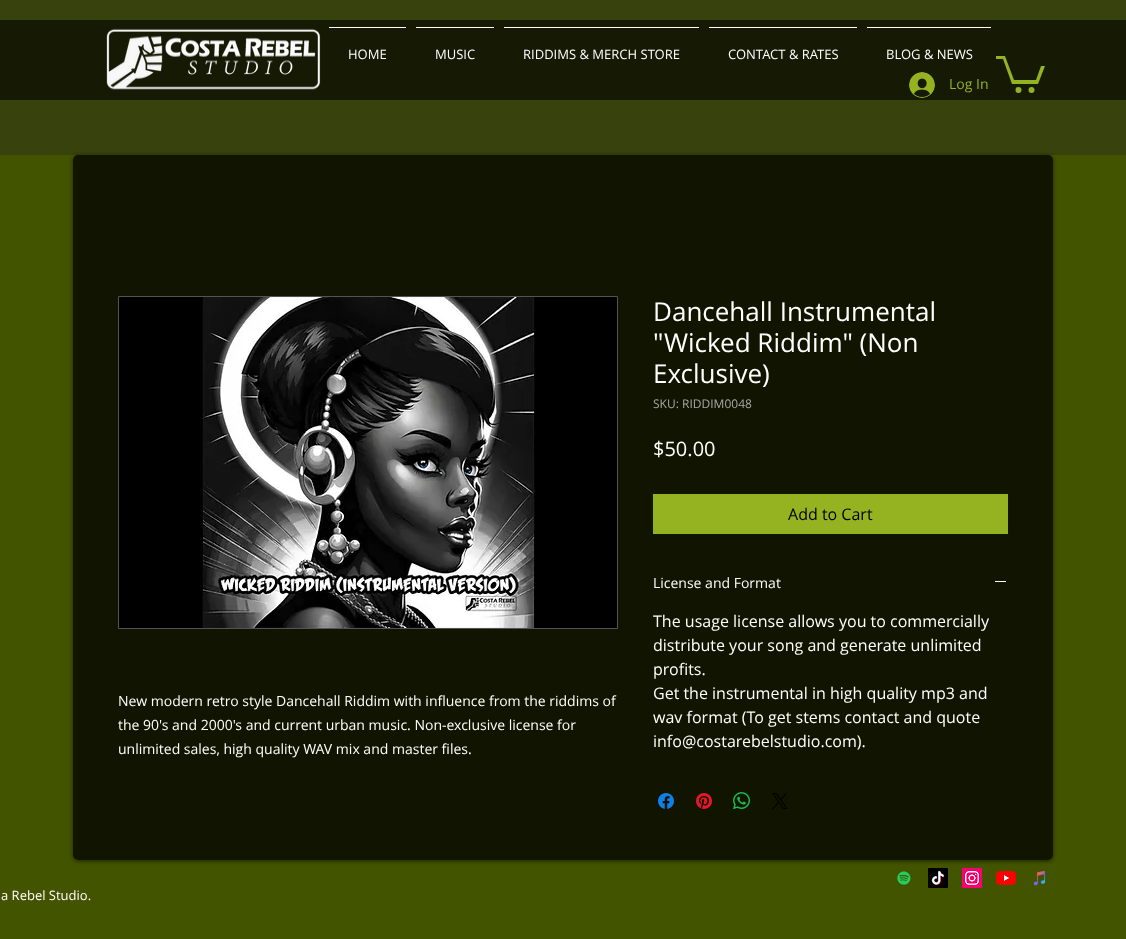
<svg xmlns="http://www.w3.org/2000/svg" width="1126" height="939">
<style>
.a{font:13px Open Sans;fill:#fff}
.b{font:14px Open Sans;fill:#95b220}
.c{font:14px Open Sans;fill:#fff}
.d{font:26px Open Sans;fill:#fff}
.e{font:12px Open Sans;fill:#a8a8a8}
.f{font:20px Open Sans;fill:#fff}
.g{font:16px Open Sans;fill:#000}
.h{font:16px Open Sans;fill:#fff}
</style>
<defs>
<clipPath id="clip1"><path d="M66 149h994v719h-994zm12 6h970c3 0 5 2 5 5v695c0 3-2 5-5 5h-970c-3 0-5-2-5-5v-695c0-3 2-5 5-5z" clip-rule="evenodd"/></clipPath>
</defs>
<rect width="100%" height="100%" fill="#435400"/>
<path fill="#37420d" d="M0 0h1126v155H0z"/>
<path fill="#161a05" d="M0 20h1126v80H0z"/>
<image href="1.png" x="106" y="28" width="215" height="62"/>
<path fill="#fff" d="M329 27h77v1H329z"/>
<path fill="#fff" d="M416 27h78v1H416z"/>
<path fill="#fff" d="M504 27h195v1H504z"/>
<path fill="#fff" d="M709 27h148v1H709z"/>
<path fill="#fff" d="M867 27h124v1H867z"/>
<image href="2.png" x="909" y="72" width="26" height="26"/>
<path fill="#95b220" d="M1045 66l-7 18h-26l-9-25h-7v-3h9l9 24h22l5-14"/>
<circle fill="#95b220" cx="1031.5" cy="90" r="3"/>
<circle fill="#95b220" cx="1018.5" cy="90" r="3"/>
<g clip-path="url(#clip1)">
<rect fill="#00000099" filter="blur(2px)" x="73" y="156" width="980" height="705" rx="5"/>
</g>
<rect fill="#000000bf" x="73" y="155" width="980" height="705" rx="5"/>
<path fill="none" stroke="#535353" d="M118.5 296.5h499v332H118.5z"/>
<image href="3.png" x="119" y="297" width="498" height="331"/>
<path fill="#95b220" d="M653 494h355v40H653z"/>
<path fill="#fff" d="M995 581h11v1H995z"/>
<image href="4.png" x="658" y="793" width="16" height="16"/>
<image href="5.png" x="696" y="793" width="16" height="16"/>
<image href="6.png" x="733" y="792" width="17" height="17"/>
<image href="7.png" x="772" y="793" width="16" height="16"/>
<image href="8.png" x="897" y="871" width="14" height="14"/>
<image href="9.png" x="928" y="868" width="20" height="20"/>
<image href="10.png" x="962" y="868" width="20" height="20"/>
<image href="11.png" x="996" y="870" width="20" height="16"/>
<image href="12.png" x="1033" y="870" width="13" height="16"/>
<text class="a" x="348" y="59">HOME</text>
<text class="a" x="435" y="59">MUSIC</text>
<text class="a" x="523" y="59">RIDDIMS &amp; MERCH STORE</text>
<text class="a" x="728" y="59">CONTACT &amp; RATES</text>
<text class="a" x="886" y="59">BLOG &amp; NEWS</text>
<text class="b" x="949" y="89">Log In</text>
<text class="c" x="118" y="706">New modern retro style Dancehall Riddim with influence from the riddims of</text>
<text class="c" x="118" y="730">the 90's and 2000's and current urban music. Non-exclusive license for</text>
<text class="c" x="118" y="754">unlimited sales, high quality WAV mix and master files.</text>
<text class="d" x="653" y="321">Dancehall Instrumental</text>
<text class="d" x="653" y="352">"Wicked Riddim" (Non</text>
<text class="d" x="653" y="383">Exclusive)</text>
<text class="e" x="653" y="408">SKU: RIDDIM0048</text>
<text class="f" x="653" y="456">$50.00</text>
<text class="g" x="788" y="520">Add to Cart</text>
<text class="c" x="653" y="588">License and Format</text>
<text class="h" x="653" y="627">The usage license allows you to commercially</text>
<text class="h" x="653" y="651">distribute your song and generate unlimited</text>
<text class="h" x="653" y="675">profits.</text>
<text class="h" x="653" y="699">Get the instrumental in high quality mp3 and</text>
<text class="h" x="653" y="723">wav format (To get stems contact and quote</text>
<text class="h" x="653" y="747">info@costarebelstudio.com).</text>
<text class="a" x="1" y="900">a Rebel Studio.</text>
</svg>
